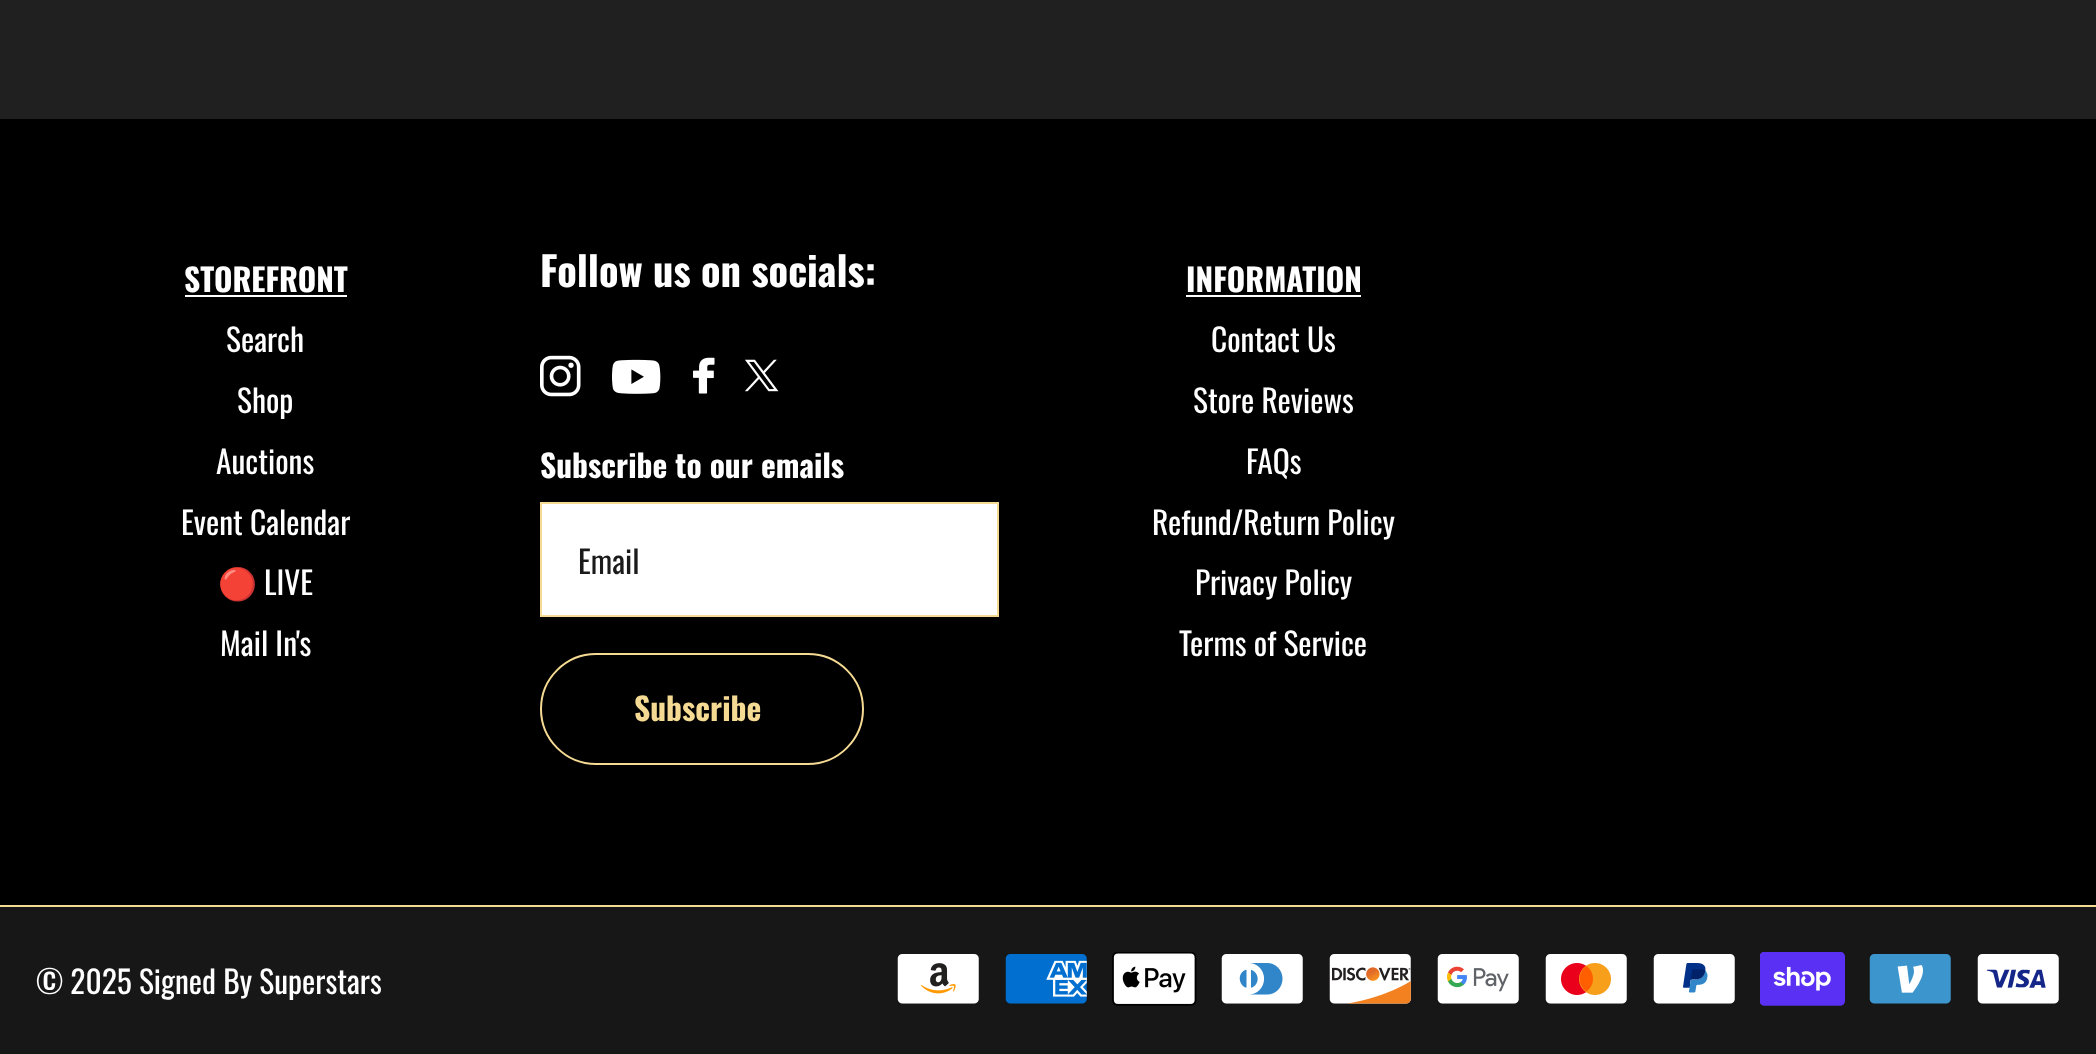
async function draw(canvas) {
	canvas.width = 2096;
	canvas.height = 1054;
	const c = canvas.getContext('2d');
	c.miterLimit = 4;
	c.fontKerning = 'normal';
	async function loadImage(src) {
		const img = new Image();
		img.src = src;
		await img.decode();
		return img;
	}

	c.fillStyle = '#202020';
	c.fillRect(0, 0, 2096, 1054);
	c.fillStyle = '#000';
	c.fillRect(0, 119, 2096, 786);
	c.font = 'bold 31.5px Oswald';
	c.fillStyle = '#fff';
	c.fillText('STOREFRONT', 184, 292);
	c.fillRect(185, 295, 162, 2);
	c.font = '31.5px Oswald';
	for (const [text, x, y] of [
		['Search', 226, 352],
		['Shop', 237, 413],
		['Auctions', 216, 474],
		['Event Calendar', 181, 535],
	]) {
		c.fillText(text, x, y);
	}
	c.font = '31.5px Noto Color Emoji';
	c.fillText('🔴', 218, 595);
	c.font = '31.5px Oswald';
	c.fillText('LIVE', 264, 595);
	c.fillText('Mail In\'s', 220, 656);
	c.font = 'bold 40.5px Oswald';
	c.fillText('Follow us on socials:', 540, 287);
	c.drawImage(await loadImage('img1.png'), 540, 355, 41, 42);
	c.drawImage(await loadImage('img2.png'), 612, 359, 49, 35);
	c.drawImage(await loadImage('img3.png'), 693, 357, 22, 37);
	c.drawImage(await loadImage('img4.png'), 744, 359, 35, 33);
	c.font = 'bold 31.5px Oswald';
	c.fillText('Subscribe to our emails', 540, 478);
	c.beginPath();
	c.rect(541, 503, 457, 113);
	c.fill();
	c.strokeStyle = '#f4da93';
	c.lineWidth = 2;
	c.stroke();
	c.font = '31.5px Oswald';
	c.fillStyle = '#1a1a1a';
	c.fillText('Email', 578, 574);
	c.beginPath();
	c.roundRect(541, 654, 322, 110, 55);
	c.stroke();
	c.font = 'bold 31.5px Oswald';
	c.fillStyle = '#f4da93';
	c.fillText('Subscribe', 634, 721);
	c.fillStyle = '#fff';
	c.fillText('INFORMATION', 1186, 292);
	c.fillRect(1186, 295, 175, 2);
	c.font = '31.5px Oswald';
	for (const [text, x, y] of [
		['Contact Us', 1211, 352],
		['Store Reviews', 1193, 413],
		['FAQs', 1246, 474],
		['Refund/Return Policy', 1152, 535],
		['Privacy Policy', 1195, 595],
		['Terms of Service', 1179, 656],
	]) {
		c.fillText(text, x, y);
	}
	c.fillStyle = '#171717';
	c.fillRect(0, 907, 2096, 147);
	c.fillStyle = '#f4da93';
	c.fillRect(0, 905, 2096, 2);
	c.fillStyle = '#fff';
	c.fillText('© 2025 Signed By Superstars', 36, 994);
	c.drawImage(await loadImage('img5.png'), 897, 954, 82, 50);
	c.drawImage(await loadImage('img6.png'), 1005, 954, 82, 50);
	c.drawImage(await loadImage('img7.png'), 1112, 952, 85, 54);
	c.drawImage(await loadImage('img8.png'), 1221, 954, 82, 50);
	c.drawImage(await loadImage('img9.png'), 1329, 954, 82, 50);
	c.drawImage(await loadImage('img10.png'), 1437, 954, 82, 50);
	c.drawImage(await loadImage('img11.png'), 1545, 954, 82, 50);
	c.drawImage(await loadImage('img12.png'), 1653, 954, 82, 50);
	c.drawImage(await loadImage('img13.png'), 1760, 952, 85, 54);
	c.drawImage(await loadImage('img14.png'), 1869, 954, 82, 50);
	c.drawImage(await loadImage('img15.png'), 1977, 954, 82, 50);
}

draw(document.querySelector('canvas'));
